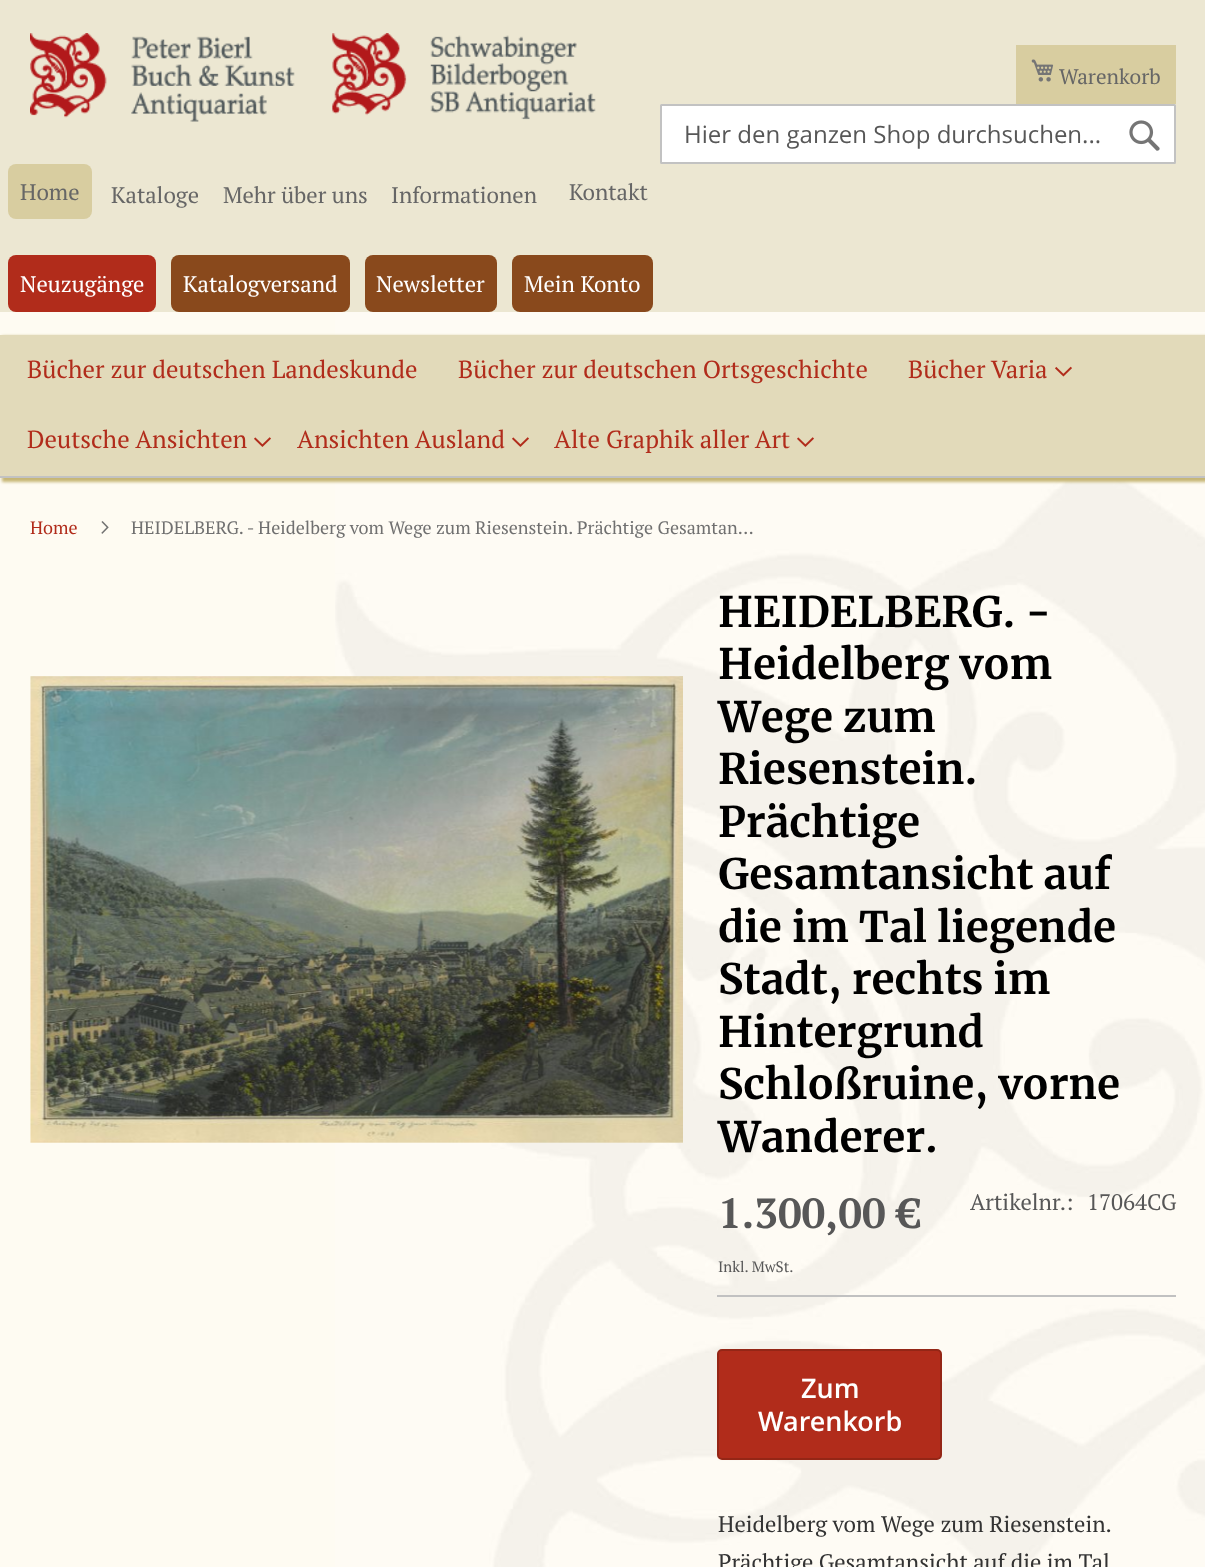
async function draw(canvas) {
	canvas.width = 1205;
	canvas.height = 1567;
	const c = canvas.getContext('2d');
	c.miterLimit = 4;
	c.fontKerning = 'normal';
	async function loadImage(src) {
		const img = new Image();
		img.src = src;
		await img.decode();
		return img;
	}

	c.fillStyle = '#fefbf2';
	c.fillRect(0, 0, 1205, 1567);
	c.drawImage(await loadImage('img1.png'), 335, 312, 870, 1255);
	c.fillStyle = '#ece7d2';
	c.fillRect(0, 0, 1205, 312);
	c.drawImage(await loadImage('img2.png'), 30, 33, 566, 89);
	c.fillStyle = '#d8cda0';
	c.fillRect(1016, 45, 160, 59);
	c.drawImage(await loadImage('img3.png'), 1031, 59, 23, 23);
	c.font = '21px PT Serif';
	c.fillStyle = '#666';
	c.fillText('Warenkorb', 1059, 84);
	c.fillStyle = '#fff';
	c.beginPath();
	c.roundRect(661, 105, 514, 58, 0.5);
	c.fill();
	c.strokeStyle = '#c2c2c2';
	c.lineWidth = 2;
	c.stroke();
	c.font = '24px Open Sans';
	c.fillStyle = '#575757';
	c.fillText('Hier den ganzen Shop durchsuchen...', 684, 143);
	c.drawImage(await loadImage('img4.png'), 1129, 120, 31, 31);
	c.fillStyle = '#d8cda0';
	c.beginPath();
	c.roundRect(8, 164, 84, 55, 8);
	c.fill();
	c.font = '22.5px PT Serif';
	c.fillStyle = '#666';
	for (const [text, x, y] of [
		['Home', 20, 200],
		['Kataloge', 111, 203],
		['Mehr über uns', 223, 203],
		['Informationen', 391, 203],
		['Kontakt', 569, 200],
	]) {
		c.fillText(text, x, y);
	}
	c.fillStyle = '#b12c1b';
	c.beginPath();
	c.roundRect(8, 255, 148, 57, 8);
	c.fill();
	c.fillStyle = '#fff';
	c.fillText('Neuzugänge', 20, 292);
	c.fillStyle = '#89491c';
	c.beginPath();
	c.roundRect(171, 255, 179, 57, 8);
	c.fill();
	c.fillStyle = '#fff';
	c.fillText('Katalogversand', 183, 292);
	c.fillStyle = '#89491c';
	c.beginPath();
	c.roundRect(365, 255, 132, 57, 8);
	c.fill();
	c.fillStyle = '#fff';
	c.fillText('Newsletter', 376, 292);
	c.fillStyle = '#89491c';
	c.beginPath();
	c.roundRect(512, 255, 141, 57, 8);
	c.fill();
	c.fillStyle = '#fff';
	c.fillText('Mein Konto', 524, 292);
	c.fillStyle = '#c6b675';
	c.filter = 'blur(1.5px)';
	c.beginPath();
	c.rect(2, 336, 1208, 146);
	c.fill();
	c.filter = 'none';
	c.fillStyle = '#e2daba';
	c.fillRect(0, 335, 1205, 141);
	c.fillStyle = '#c2c2c2';
	c.fillRect(0, 476, 1205, 2);
	c.font = '24.75px PT Serif';
	c.fillStyle = '#b12c1b';
	for (const [text, x, y] of [
		['Bücher zur deutschen Landeskunde', 27, 378],
		['Bücher zur deutschen Ortsgeschichte', 458, 378],
		['Bücher Varia', 908, 378],
	]) {
		c.fillText(text, x, y);
	}
	c.drawImage(await loadImage('img5.png'), 1055, 366, 17, 11);
	c.fillText('Deutsche Ansichten', 27, 448);
	c.drawImage(await loadImage('img6.png'), 254, 437, 17, 10);
	c.fillText('Ansichten Ausland', 297, 448);
	c.drawImage(await loadImage('img6.png'), 512, 437, 17, 10);
	c.fillText('Alte Graphik aller Art', 554, 448);
	c.drawImage(await loadImage('img6.png'), 797, 437, 17, 10);
	c.font = '18px PT Serif';
	c.fillText('Home', 30, 534);
	c.drawImage(await loadImage('img7.png'), 101, 521, 8, 13);
	c.fillStyle = '#707070';
	c.fillText('HEIDELBERG. - Heidelberg vom Wege zum Riesenstein. Prächtige Gesamtan…', 131, 534);
	c.drawImage(await loadImage('img8.png'), 30, 676, 653, 467);
	c.font = 'bold 42px Merriweather';
	c.fillStyle = '#000';
	for (const [text, x, y] of [
		['HEIDELBERG. -', 718, 627],
		['Heidelberg vom', 718, 679],
		['Wege zum', 718, 732],
		['Riesenstein.', 718, 784],
		['Prächtige', 718, 837],
		['Gesamtansicht auf', 718, 889],
		['die im Tal liegende', 718, 942],
		['Stadt, rechts im', 718, 994],
		['Hintergrund', 718, 1047],
		['Schloßruine, vorne', 718, 1099],
		['Wanderer.', 718, 1152],
	]) {
		c.fillText(text, x, y);
	}
	c.fillStyle = '#c1c1c1';
	c.fillRect(717, 1295, 459, 2);
	c.font = 'bold 42px PT Serif';
	c.fillStyle = '#575757';
	c.fillText('1.300,00 €', 718, 1228);
	c.font = '15px PT Serif';
	c.fillText('Inkl. MwSt.', 718, 1272);
	c.font = '22.5px PT Serif';
	c.fillText('Artikelnr.:', 970, 1210);
	c.fillText('17064CG', 1087, 1210);
	c.fillStyle = '#b12c1b';
	c.beginPath();
	c.roundRect(718, 1350, 223, 109, 4);
	c.fill();
	c.strokeStyle = '#942616';
	c.stroke();
	c.font = '600 27px Open Sans';
	c.fillStyle = '#fff';
	c.fillText('Zum', 801, 1398);
	c.fillText('Warenkorb', 758, 1431);
	c.font = '22.5px PT Serif';
	c.fillStyle = '#333';
	c.fillText('Heidelberg vom Wege zum Riesenstein.', 718, 1532);
	c.fillText('Prächtige Gesamtansicht auf die im Tal', 718, 1570);
}

draw(document.querySelector('canvas'));
